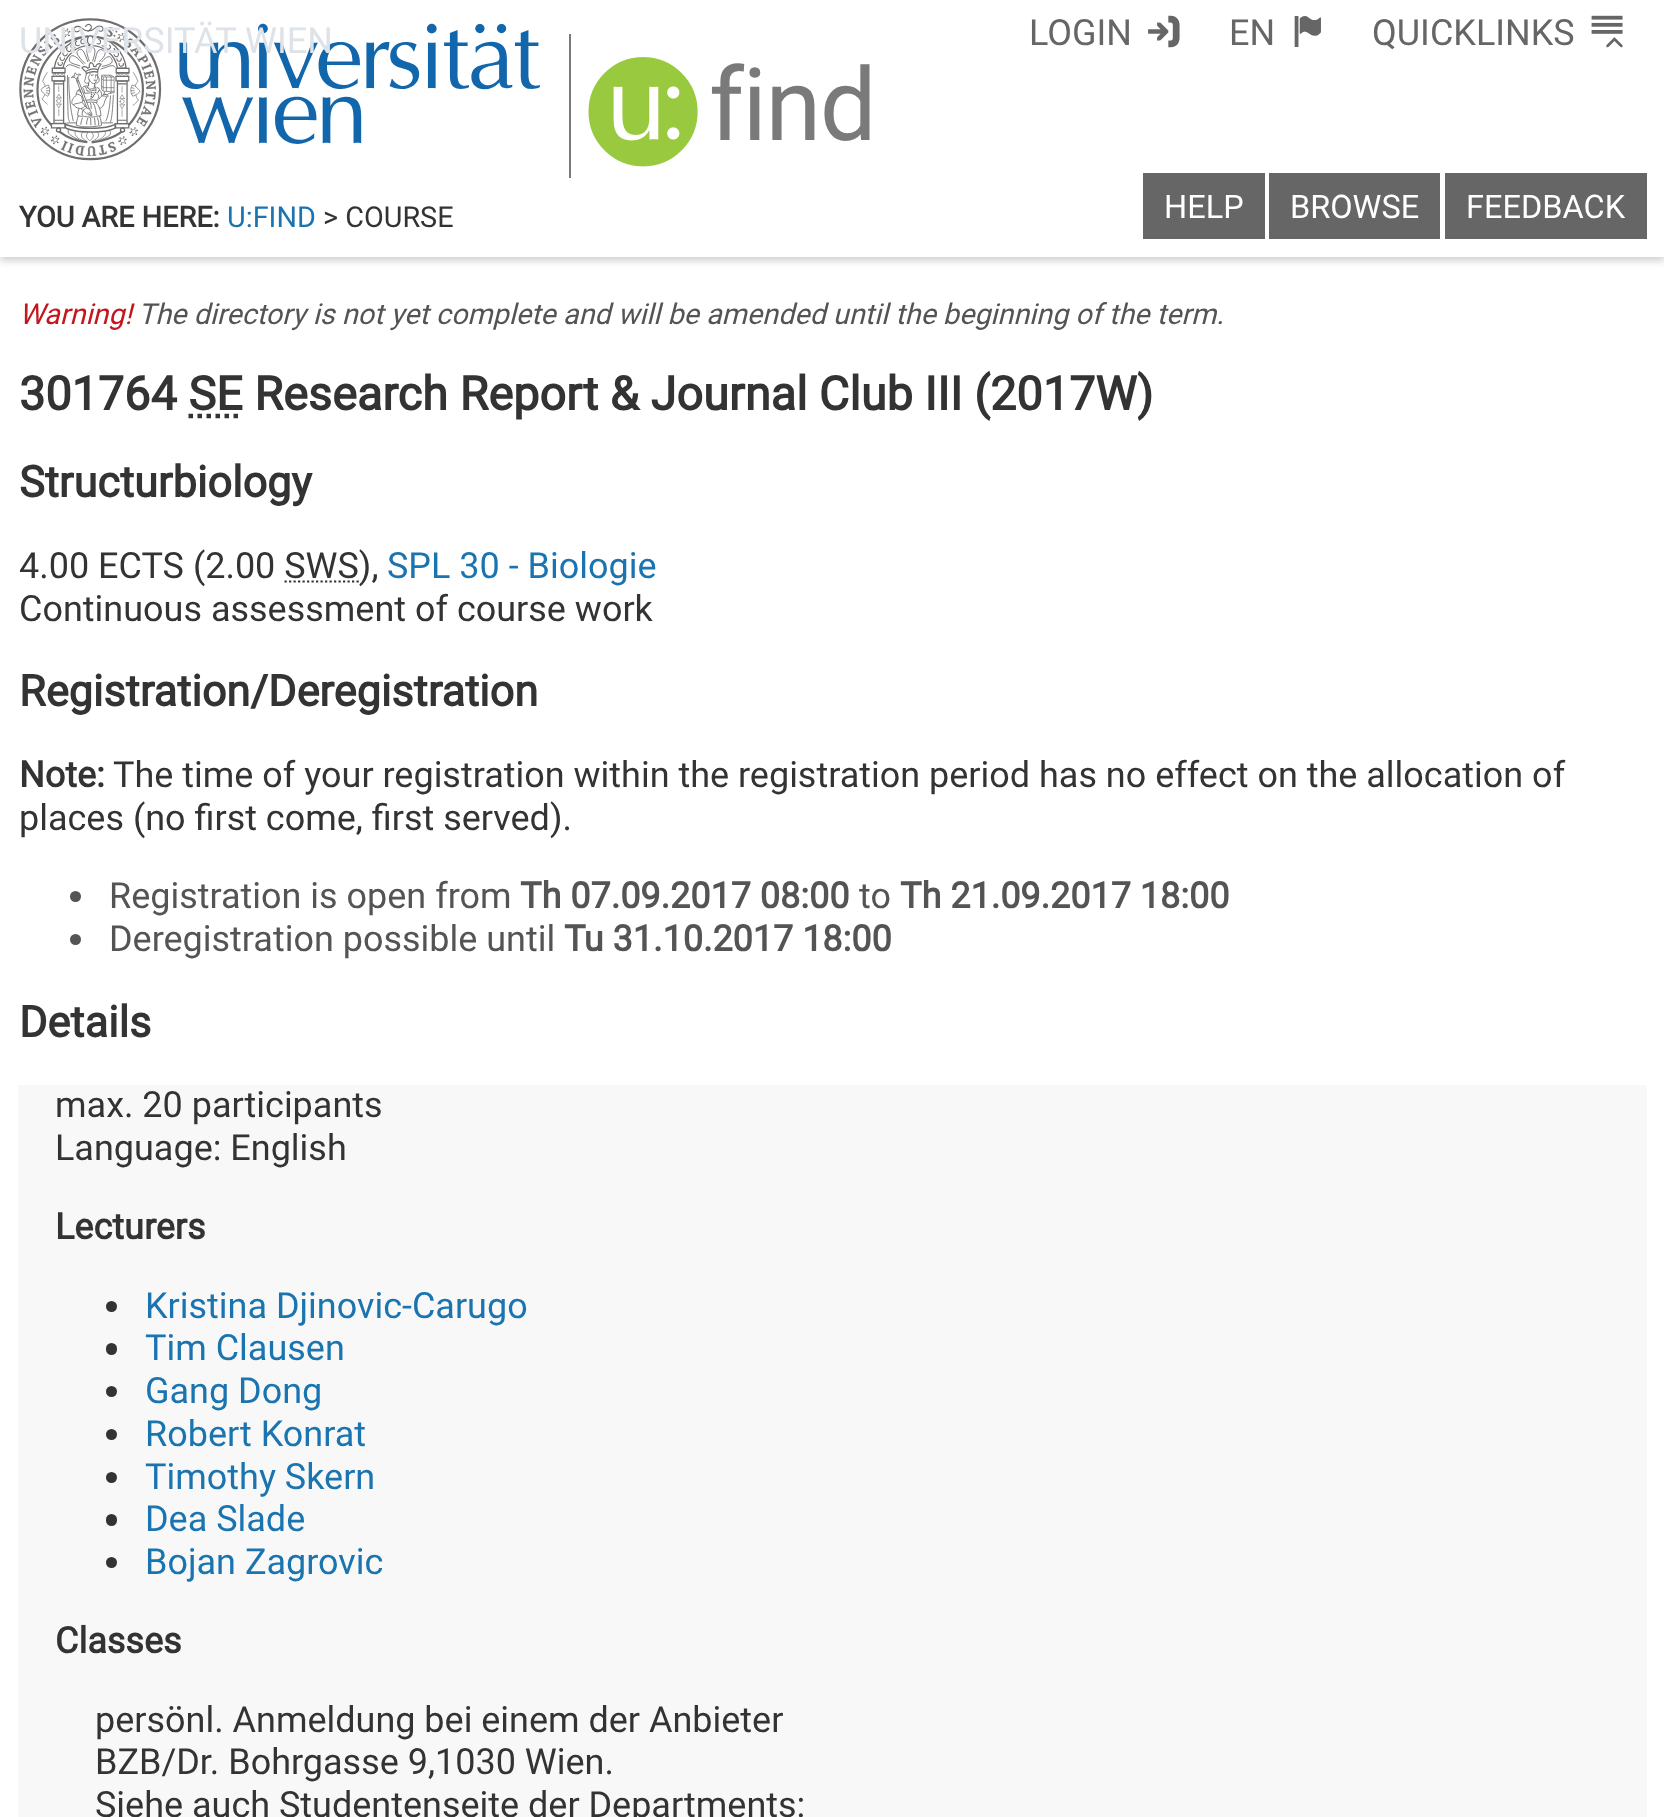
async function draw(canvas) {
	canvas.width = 1664;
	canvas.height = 1817;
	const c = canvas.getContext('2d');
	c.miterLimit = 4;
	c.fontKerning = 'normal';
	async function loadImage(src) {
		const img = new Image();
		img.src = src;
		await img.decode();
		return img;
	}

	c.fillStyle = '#fff';
	c.fillRect(0, 0, 1664, 1817);
	c.fillStyle = '#0000002e';
	c.filter = 'blur(3.5px)';
	c.beginPath();
	c.rect(0, 5, 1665, 256);
	c.fill();
	c.filter = 'none';
	c.fillStyle = '#fff';
	c.fillRect(0, 0, 1664, 257);
	c.drawImage(await loadImage('img1.png'), 19, 18, 521, 143);
	c.font = '36px Roboto';
	c.fillStyle = '#dde3e8';
	c.fillText('UNIVERSITÄT WIEN', 19, 53);
	c.fillStyle = '#7a7a7a';
	c.fillRect(569, 34, 2, 144);
	c.drawImage(await loadImage('img2.png'), 588, 57, 110, 110);
	c.letterSpacing = '-1.5px';
	c.font = '101px Roboto';
	c.fillText('find', 709, 140);
	c.letterSpacing = '0px';
	c.font = '36px Roboto';
	c.fillStyle = '#666';
	c.fillText('LOGIN', 1029, 45);
	c.drawImage(await loadImage('img3.png'), 1148, 15, 32, 33);
	c.fillText('EN', 1229, 45);
	c.drawImage(await loadImage('img4.png'), 1294, 16, 27, 31);
	c.fillText('QUICKLINKS', 1372, 45);
	c.drawImage(await loadImage('img5.png'), 1591, 15, 32, 33);
	c.fillRect(1143, 173, 122, 66);
	c.font = '32.5px Roboto';
	c.fillStyle = '#fff';
	c.fillText('HELP', 1164, 218);
	c.fillStyle = '#666';
	c.fillRect(1269, 173, 171, 66);
	c.fillStyle = '#fff';
	c.fillText('BROWSE', 1290, 218);
	c.fillStyle = '#666';
	c.fillRect(1445, 173, 202, 66);
	c.fillStyle = '#fff';
	c.fillText('FEEDBACK', 1466, 218);
	c.font = 'bold 28.8px Roboto';
	c.fillStyle = '#333';
	c.fillText('YOU ARE HERE:', 19, 227);
	c.font = '28.8px Roboto';
	c.fillStyle = '#1a74b0';
	c.fillText('U:FIND', 227, 227);
	c.fillStyle = '#333';
	c.fillText('> COURSE', 323, 227);
	c.font = 'italic 28.8px Roboto';
	c.fillStyle = '#c4161c';
	c.fillText('Warning!', 19, 324);
	c.fillStyle = '#545454';
	c.fillText('The directory is not yet complete and will be amended until the beginning of the term.', 138, 324);
	c.font = 'bold 46.8px Roboto';
	c.fillStyle = '#333';
	c.fillText('301764 SE Research Report & Journal Club III (2017W', 19, 410);
	c.beginPath();
	c.moveTo(188.5, 416);
	c.lineTo(242.5, 416);
	c.strokeStyle = '#333';
	c.lineWidth = 4.5;
	c.setLineDash([4.5, 4.5]);
	c.stroke();
	c.fillText(')', 1137, 410);
	c.font = 'bold 43.25px Roboto';
	c.fillText('Structurbiology', 19, 497);
	c.font = '36px Roboto';
	c.fillText('4.00 ECTS (2.00 SWS),', 19, 578);
	c.fillStyle = '#1a74b0';
	c.fillText('SPL 30 - Biologie', 387, 578);
	c.beginPath();
	c.moveTo(284.5, 581.5);
	c.lineTo(359, 581.5);
	c.lineWidth = 2.2;
	c.setLineDash([2.25, 2.25]);
	c.stroke();
	c.fillStyle = '#333';
	c.fillText('Continuous assessment of course work', 19, 621);
	c.font = 'bold 43.25px Roboto';
	c.fillText('Registration/Deregistration', 19, 706);
	c.font = 'bold 36px Roboto';
	c.fillText('Note:', 19, 787);
	c.font = '36px Roboto';
	c.fillText('The time of your registration within the registration period has no effect on the allocation of', 113, 787);
	c.fillText('places (no first come, first served).', 19, 830);
	c.fillStyle = '#545454';
	c.beginPath();
	c.arc(75.5, 896.5, 5.5, 0, 2 * Math.PI);
	c.fill();
	c.fillText('Registration is open from', 109, 908);
	c.font = 'bold 36px Roboto';
	c.fillText('Th 07.09.2017 08:00', 520, 908);
	c.font = '36px Roboto';
	c.fillText('to', 859, 908);
	c.font = 'bold 36px Roboto';
	c.fillText('Th 21.09.2017 18:00', 900, 908);
	c.beginPath();
	c.arc(75.5, 939.5, 5.5, 0, 2 * Math.PI);
	c.fill();
	c.font = '36px Roboto';
	c.fillText('Deregistration possible until', 109, 951);
	c.font = 'bold 36px Roboto';
	c.fillText('Tu 31.10.2017 18:00', 564, 951);
	c.font = 'bold 43.25px Roboto';
	c.fillStyle = '#333';
	c.fillText('Details', 19, 1037);
	c.fillStyle = '#f8f8f8';
	c.fillRect(18, 1085, 1629, 732);
	c.font = '36px Roboto';
	c.fillStyle = '#333';
	c.fillText('max. 20 participants', 55, 1117);
	c.fillText('Language: English', 55, 1160);
	c.font = 'bold 36px Roboto';
	c.fillText('Lecturers', 55, 1239);
	c.beginPath();
	c.arc(111.5, 1306.5, 5.5, 0, 2 * Math.PI);
	c.fill();
	c.font = '36px Roboto';
	c.fillStyle = '#1a74b0';
	c.fillText('Kristina Djinovic-Carugo', 145, 1318);
	c.fillStyle = '#333';
	c.beginPath();
	c.roundRect(106, 1343, 11, 12, 5.5);
	c.fill();
	c.fillStyle = '#1a74b0';
	c.fillText('Tim Clausen', 145, 1360);
	c.fillStyle = '#333';
	c.beginPath();
	c.arc(111.5, 1391.5, 5.5, 0, 2 * Math.PI);
	c.fill();
	c.fillStyle = '#1a74b0';
	c.fillText('Gang Dong', 145, 1403);
	c.fillStyle = '#333';
	c.beginPath();
	c.arc(111.5, 1434.5, 5.5, 0, 2 * Math.PI);
	c.fill();
	c.fillStyle = '#1a74b0';
	c.fillText('Robert Konrat', 145, 1446);
	c.fillStyle = '#333';
	c.beginPath();
	c.arc(111.5, 1477.5, 5.5, 0, 2 * Math.PI);
	c.fill();
	c.fillStyle = '#1a74b0';
	c.fillText('Timothy Skern', 145, 1489);
	c.fillStyle = '#333';
	c.beginPath();
	c.roundRect(106, 1514, 11, 12, 5.5);
	c.fill();
	c.fillStyle = '#1a74b0';
	c.fillText('Dea Slade', 145, 1531);
	c.fillStyle = '#333';
	c.beginPath();
	c.arc(111.5, 1562.5, 5.5, 0, 2 * Math.PI);
	c.fill();
	c.fillStyle = '#1a74b0';
	c.fillText('Bojan Zagrovic', 145, 1574);
	c.font = 'bold 36px Roboto';
	c.fillStyle = '#333';
	c.fillText('Classes', 55, 1653);
	c.font = '36px Roboto';
	for (const [text, x, y] of [
		['persönl. Anmeldung bei einem der Anbieter', 95, 1732],
		['BZB/Dr. Bohrgasse 9,1030 Wien.', 95, 1774],
		['Siehe auch Studentenseite der Departments:', 95, 1817],
	]) {
		c.fillText(text, x, y);
	}
}

draw(document.querySelector('canvas'));
